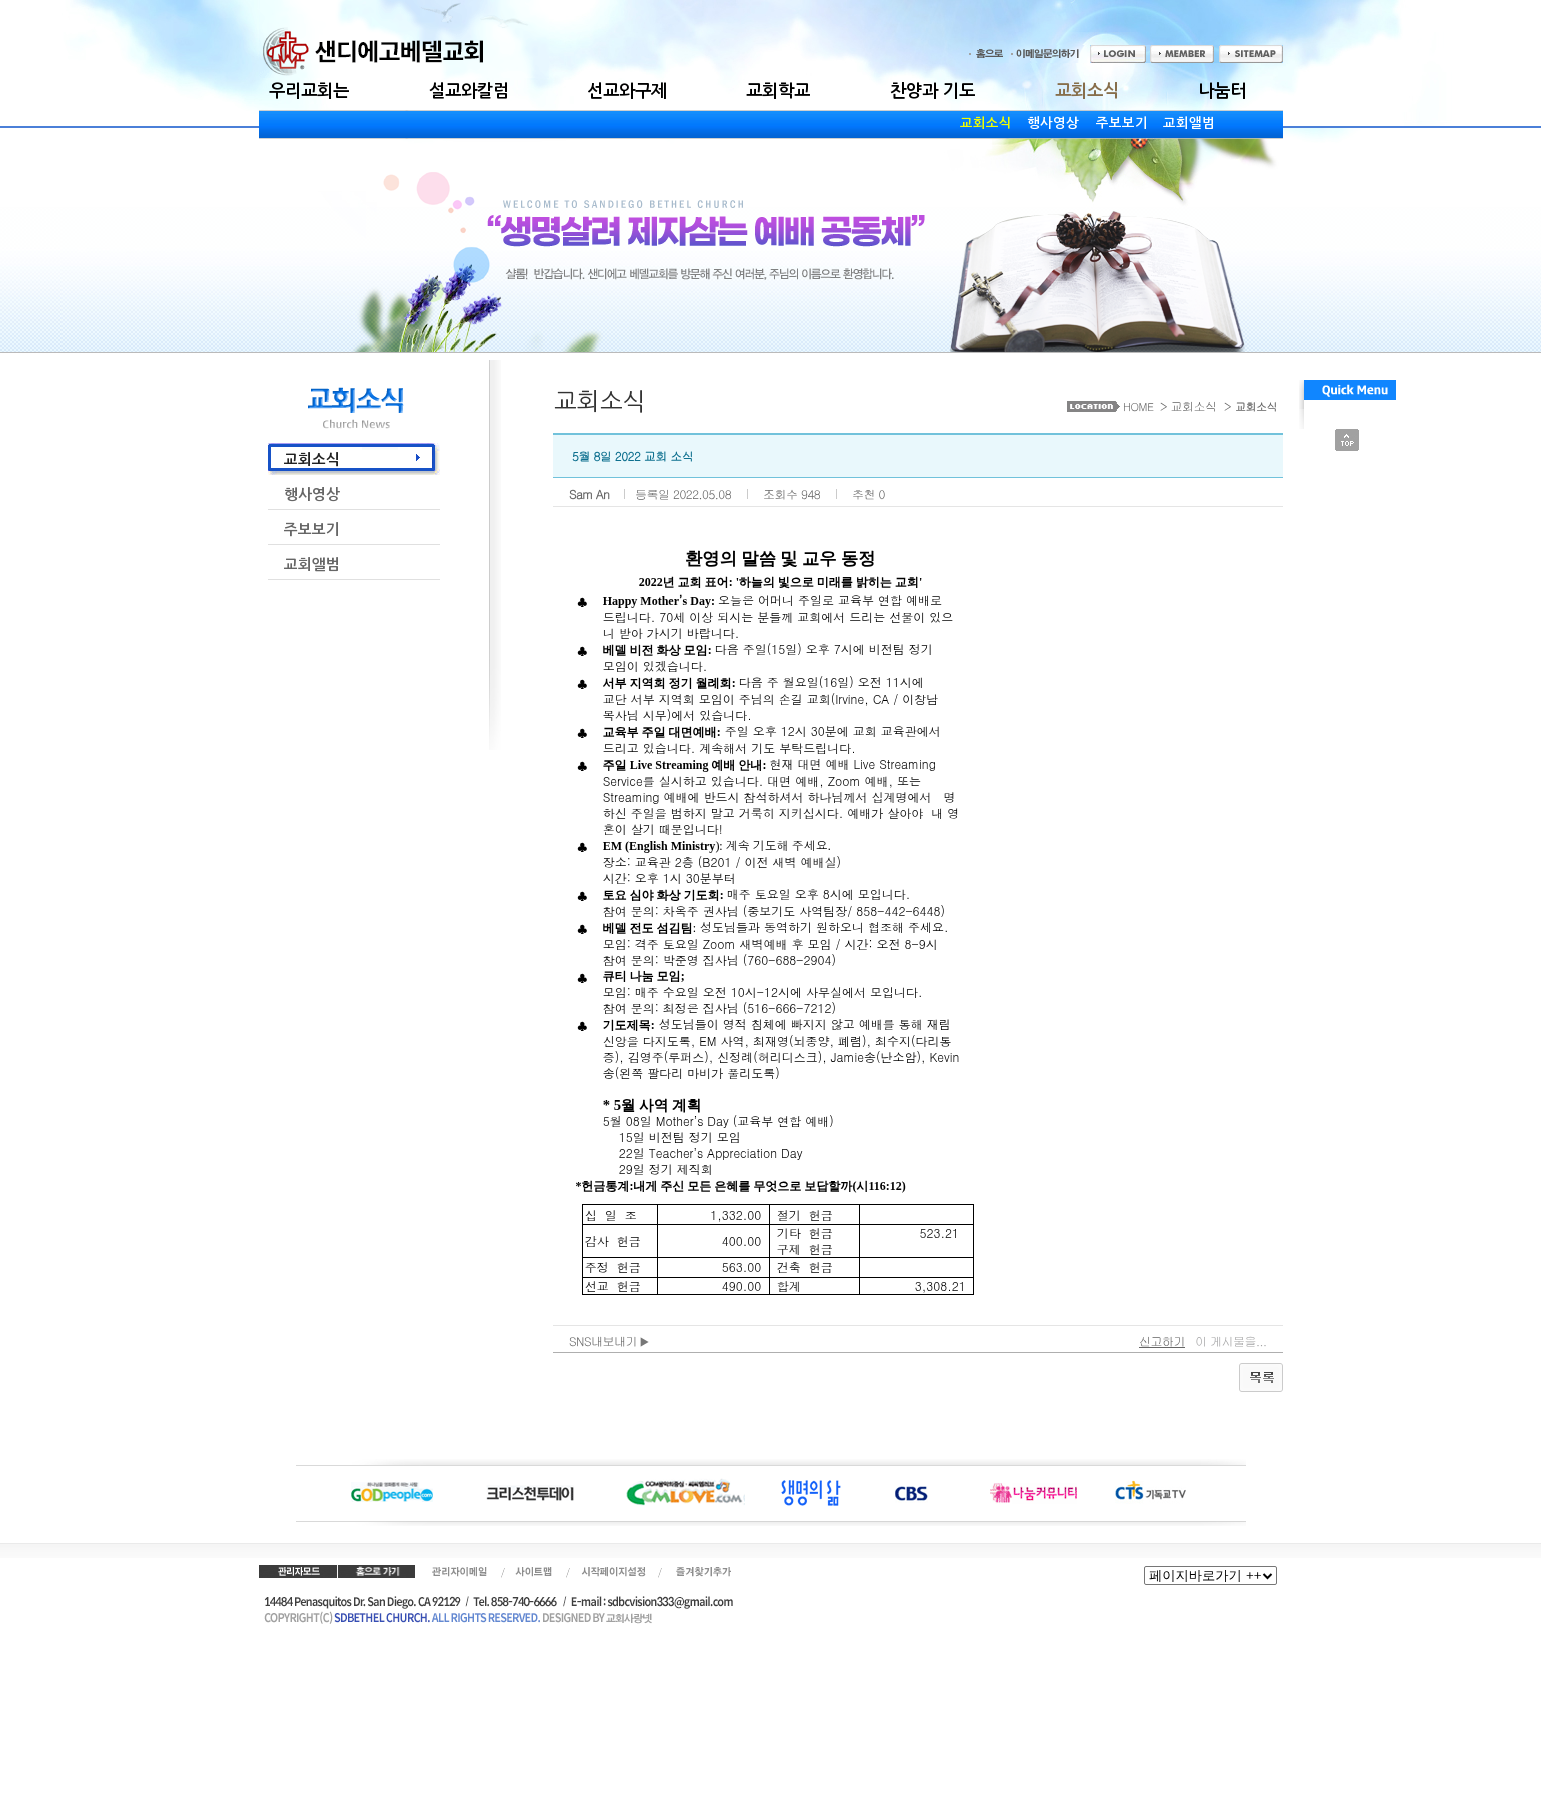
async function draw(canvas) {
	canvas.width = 1541;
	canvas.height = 1813;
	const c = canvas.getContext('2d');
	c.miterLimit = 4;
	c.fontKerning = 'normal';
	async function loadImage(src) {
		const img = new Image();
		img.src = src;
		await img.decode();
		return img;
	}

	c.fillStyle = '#fff';
	c.fillRect(0, 0, 1541, 1813);
	c.drawImage(await loadImage('img1.png'), 0, 126, 1541, 227);
	c.drawImage(await loadImage('img2.png'), 62, 0, 1417, 352);
	c.drawImage(await loadImage('img3.png'), 259, 0, 290, 78);
	c.drawImage(await loadImage('img4.png'), 969, 49, 40, 14);
	c.drawImage(await loadImage('img5.png'), 1011, 45, 76, 18);
	c.drawImage(await loadImage('img6.png'), 1090, 45, 60, 18);
	c.drawImage(await loadImage('img7.png'), 1150, 45, 69, 18);
	c.drawImage(await loadImage('img8.png'), 1219, 45, 64, 18);
	c.drawImage(await loadImage('img9.png'), 259, 110, 1024, 29);
	c.drawImage(await loadImage('img10.png'), 269, 82, 80, 17);
	c.drawImage(await loadImage('img11.png'), 429, 82, 78, 17);
	c.drawImage(await loadImage('img12.png'), 588, 82, 78, 17);
	c.drawImage(await loadImage('img13.png'), 746, 82, 64, 17);
	c.drawImage(await loadImage('img14.png'), 890, 82, 85, 17);
	c.drawImage(await loadImage('img15.png'), 1055, 82, 62, 17);
	c.drawImage(await loadImage('img16.png'), 1200, 82, 45, 17);
	c.drawImage(await loadImage('img17.png'), 960, 116, 50, 13);
	c.drawImage(await loadImage('img18.png'), 1027, 116, 52, 14);
	c.drawImage(await loadImage('img19.png'), 1096, 116, 50, 13);
	c.drawImage(await loadImage('img20.png'), 1163, 116, 50, 14);
	c.drawImage(await loadImage('img21.png'), 383, 172, 862, 180);
	c.drawImage(await loadImage('img22.png'), 489, 360, 12, 390);
	c.drawImage(await loadImage('img23.png'), 308, 387, 96, 42);
	c.drawImage(await loadImage('img24.png'), 268, 443, 172, 32);
	c.drawImage(await loadImage('img25.png'), 284, 452, 54, 15);
	c.fillStyle = '#e0e0e0';
	c.fillRect(268, 509, 172, 1);
	c.drawImage(await loadImage('img26.png'), 285, 487, 55, 15);
	c.fillRect(268, 544, 172, 1);
	c.drawImage(await loadImage('img27.png'), 284, 522, 54, 15);
	c.fillRect(268, 579, 172, 1);
	c.drawImage(await loadImage('img28.png'), 284, 557, 54, 15);
	c.drawImage(await loadImage('img29.png'), 554, 390, 88, 23);
	c.drawImage(await loadImage('img30.png'), 1067, 401, 53, 11);
	c.letterSpacing = '-0.5px';
	c.font = '11px Gulim';
	c.fillStyle = '#666';
	c.fillText('HOME', 1123, 411);
	c.font = '12px Gulim';
	c.fillText('> 교회소식', 1160, 411);
	c.fillText('>', 1224, 411);
	c.font = 'bold 11px Gulim';
	c.fillText('교회소식', 1235, 411);
	for (const [x, y, w, h, color] of [
		[553, 435, 730, 42, '#e9f8fc'],
		[553, 433, 730, 2, '#71c2db'],
		[553, 477, 730, 1, '#71c2db'],
	]) {
		c.fillStyle = color;
		c.fillRect(x, y, w, h);
	}
	c.font = 'bold 12px Gulim';
	c.fillStyle = '#0e708f';
	c.fillText('5월 8일 2022 교회 소식', 572, 461);
	c.fillStyle = '#e5e5e5';
	c.fillRect(553, 506, 730, 1);
	c.fillStyle = '#666';
	c.fillText('Sam An', 569, 499);
	c.fillStyle = '#cbcbcb';
	c.fillRect(624, 489, 1, 10);
	c.font = '12px Gulim';
	c.fillStyle = '#666';
	c.fillText('등록일 2022.05.08', 635, 499);
	c.fillStyle = '#cbcbcb';
	c.fillRect(747, 489, 1, 10);
	c.fillStyle = '#666';
	c.fillText('조회수 948', 763, 499);
	c.fillStyle = '#cbcbcb';
	c.fillRect(836, 489, 1, 10);
	c.fillStyle = '#666';
	c.fillText('추천 0', 852, 499);
	c.drawImage(await loadImage('img31.png'), 576, 550, 398, 745);
	c.fillStyle = '#e5e5e5';
	c.fillRect(553, 1325, 730, 1);
	c.fillStyle = '#afafaf';
	c.fillRect(553, 1352, 730, 1);
	c.fillStyle = '#666';
	c.fillText('SNS내보내기', 569, 1346);
	c.drawImage(await loadImage('img32.png'), 640, 1337, 9, 10);
	c.fillText('신고하기', 1139, 1346);
	c.fillRect(1139, 1347, 46, 1);
	c.fillStyle = '#a5a5a6';
	c.fillText('이 게시물을...', 1195, 1346);
	c.drawImage(await loadImage('img33.png'), 1239, 1363, 44, 29);
	c.drawImage(await loadImage('img34.png'), 1299, 400, 5, 9);
	c.drawImage(await loadImage('img35.png'), 1299, 380, 97, 20);
	c.drawImage(await loadImage('img36.png'), 1299, 409, 5, 20);
	c.drawImage(await loadImage('img37.png'), 1299, 429, 60, 22);
	c.drawImage(await loadImage('img38.png'), 0, 1543, 1541, 15);
	c.drawImage(await loadImage('img39.png'), 296, 1459, 950, 67);
	c.drawImage(await loadImage('img40.png'), 351, 1482, 82, 20);
	c.drawImage(await loadImage('img41.png'), 486, 1485, 88, 16);
	c.drawImage(await loadImage('img42.png'), 626, 1478, 119, 28);
	c.drawImage(await loadImage('img43.png'), 781, 1480, 60, 26);
	c.drawImage(await loadImage('img44.png'), 895, 1486, 33, 17);
	c.drawImage(await loadImage('img45.png'), 990, 1483, 87, 21);
	c.drawImage(await loadImage('img46.png'), 1115, 1480, 71, 24);
	c.drawImage(await loadImage('img47.png'), 259, 1565, 78, 13);
	c.drawImage(await loadImage('img48.png'), 337, 1565, 78, 13);
	c.drawImage(await loadImage('img49.png'), 432, 1567, 73, 11);
	c.drawImage(await loadImage('img50.png'), 515, 1567, 55, 11);
	c.drawImage(await loadImage('img51.png'), 581, 1567, 81, 11);
	c.drawImage(await loadImage('img52.png'), 676, 1567, 55, 10);
	c.beginPath();
	c.roundRect(1144.5, 1566.5, 132, 18, 1.5);
	c.strokeStyle = '#767676';
	c.stroke();
	c.beginPath();
	c.moveTo(1263.5, 1574);
	c.lineTo(1267.5, 1578);
	c.lineTo(1271.5, 1574);
	c.strokeStyle = '#000';
	c.lineWidth = 2;
	c.stroke();
	c.letterSpacing = '0px';
	c.font = '500 13.25px WenQuanYi Zen Hei';
	c.fillStyle = '#000';
	c.fillText('페이지바로가기', 1149, 1580);
	c.font = '13.25px Liberation Sans';
	c.fillText('++', 1246, 1580);
	c.drawImage(await loadImage('img53.png'), 264, 1596, 469, 28);
}

draw(document.querySelector('canvas'));
